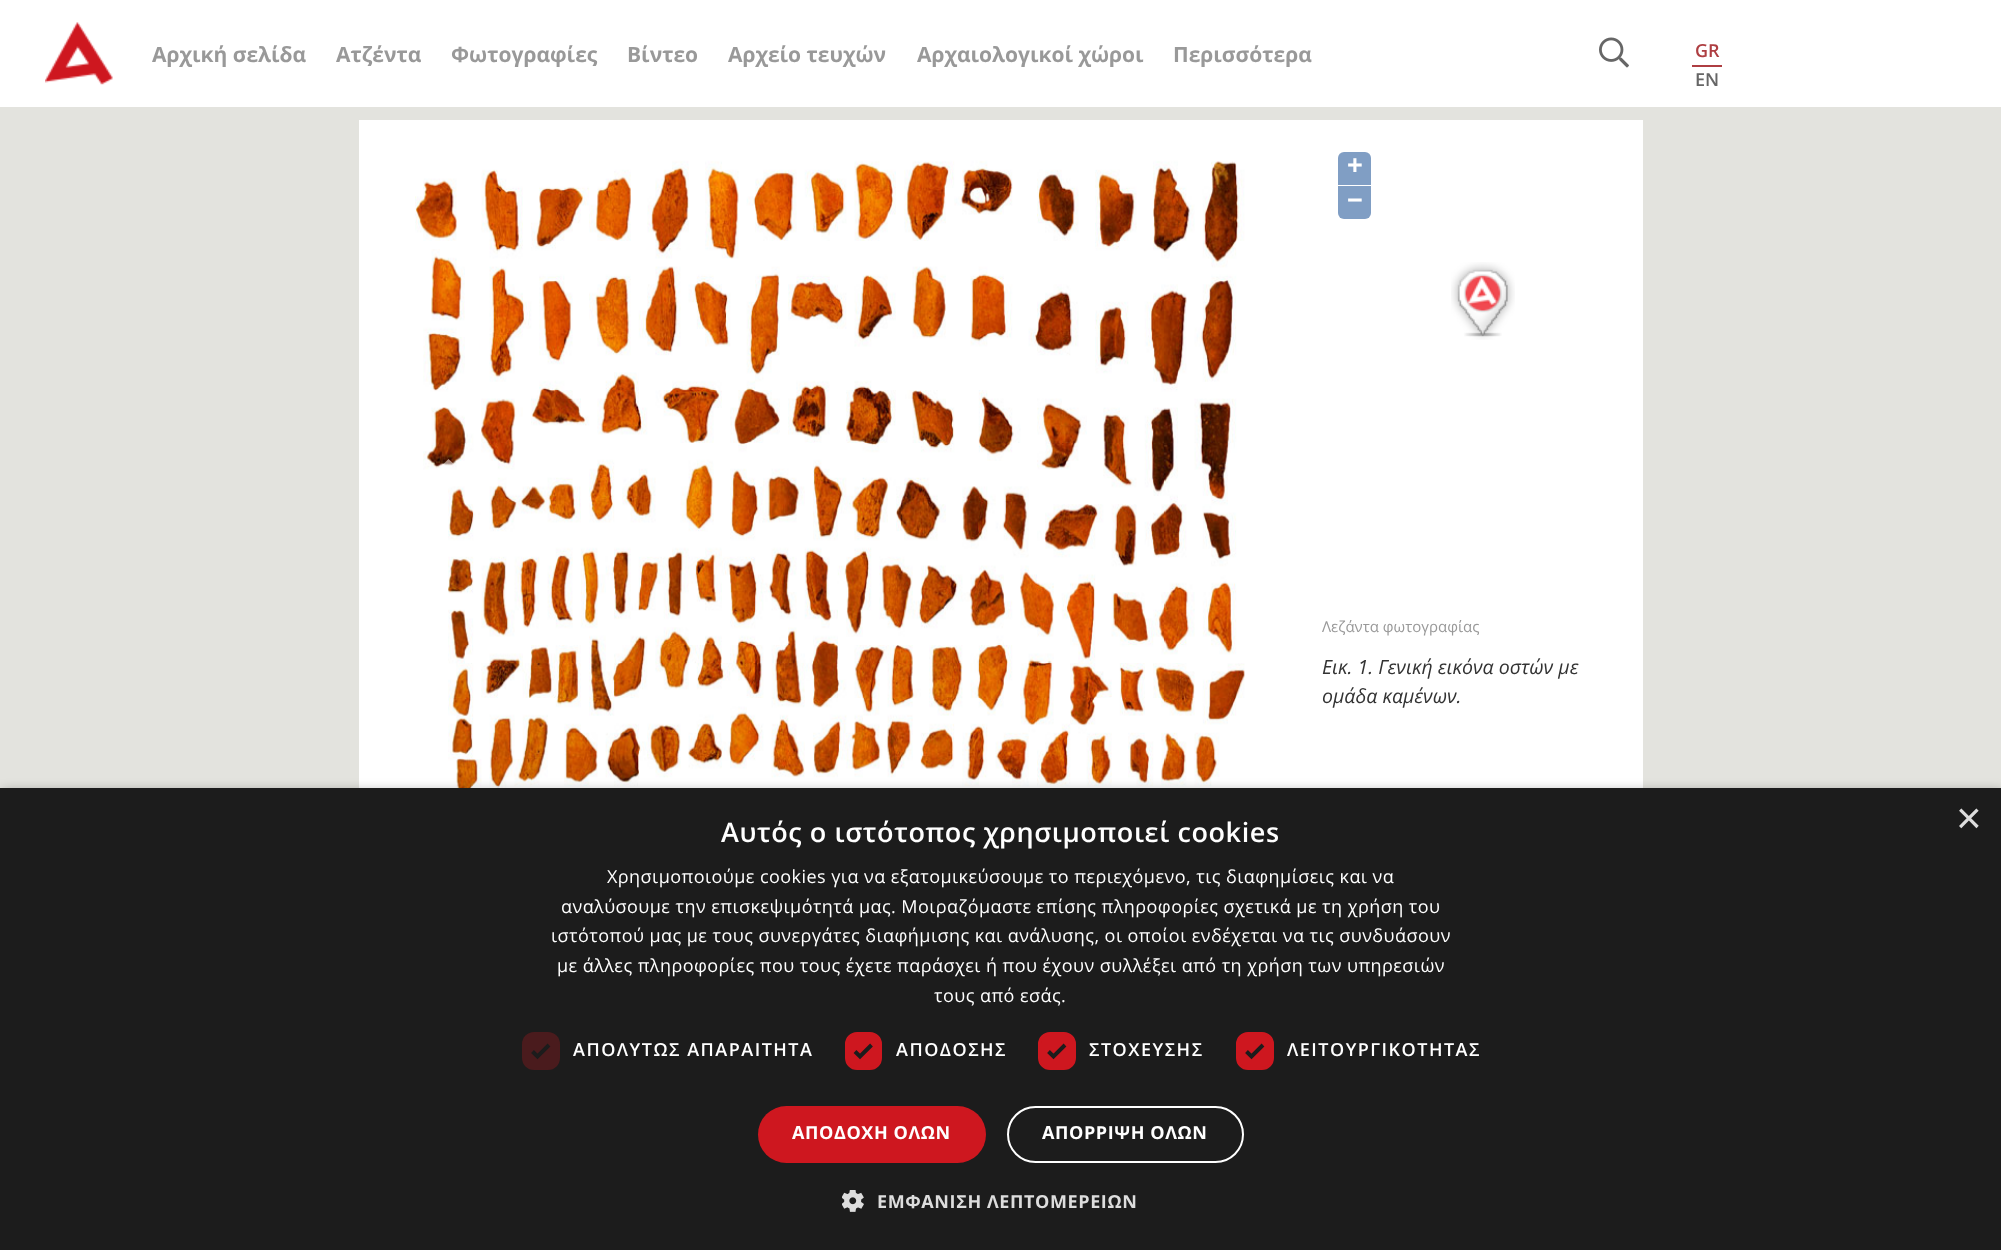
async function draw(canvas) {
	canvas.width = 2001;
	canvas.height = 1250;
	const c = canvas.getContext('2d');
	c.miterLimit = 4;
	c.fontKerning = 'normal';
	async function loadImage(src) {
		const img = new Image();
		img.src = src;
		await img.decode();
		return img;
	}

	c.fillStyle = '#e3e3de';
	c.fillRect(0, 0, 2001, 1250);
	c.fillStyle = '#fff';
	c.fillRect(0, 0, 2001, 107);
	c.drawImage(await loadImage('img1.png'), 45, 22, 68, 63);
	c.font = 'bold 21px Open Sans';
	c.fillStyle = '#999';
	for (const [text, x, y] of [
		['Αρχική σελίδα', 152, 62],
		['Ατζέντα', 336, 62],
		['Φωτογραφίες', 451, 62],
		['Βίντεο', 627, 62],
		['Αρχείο τευχών', 728, 62],
		['Αρχαιολογικοί χώροι', 917, 62],
		['Περισσότερα', 1173, 62],
	]) {
		c.fillText(text, x, y);
	}
	c.drawImage(await loadImage('img2.png'), 1599, 37, 30, 31);
	c.fillStyle = '#ae3e42';
	c.fillRect(1692, 65, 30, 2);
	c.font = '600 18px Open Sans';
	c.fillText('GR', 1695, 57);
	c.fillStyle = '#666';
	c.fillText('EN', 1695, 86);
	c.fillStyle = '#fff';
	c.fillRect(359, 120, 1284, 668);
	c.drawImage(await loadImage('img3.png'), 374, 135, 933, 653);
	c.fillStyle = '#ffffff80';
	c.beginPath();
	c.moveTo(448.5, 459);
	c.lineTo(433.5, 474);
	c.lineTo(448.5, 489);
	c.lineTo(454.5, 483.5);
	c.lineTo(445, 474);
	c.lineTo(454.5, 464.5);
	c.closePath();
	c.fill();
	c.beginPath();
	c.moveTo(1231.5, 459);
	c.lineTo(1225.5, 464.5);
	c.lineTo(1235, 474);
	c.lineTo(1225.5, 483.5);
	c.lineTo(1231.5, 489);
	c.lineTo(1246.5, 474);
	c.closePath();
	c.fill();
	c.fillStyle = '#809ec4';
	c.beginPath();
	c.roundRect(1338, 152, 33, 33, [6, 6, 0, 0]);
	c.fill();
	c.font = 'bold 27px Liberation Sans';
	c.fillStyle = '#fff';
	c.fillText('+', 1347, 174);
	c.fillStyle = '#809ec4';
	c.beginPath();
	c.roundRect(1338, 186, 33, 33, [0, 0, 6, 6]);
	c.fill();
	c.fillStyle = '#fff';
	c.fillText('−', 1347, 209);
	c.drawImage(await loadImage('img4.png'), 1451, 262, 64, 78);
	c.font = '15px Open Sans';
	c.fillStyle = '#999';
	c.fillText('Λεζάντα φωτογραφίας', 1322, 632);
	c.font = 'italic 19.5px Open Sans';
	c.fillStyle = '#333';
	c.fillText('Εικ. 1. Γενική εικόνα οστών με', 1322, 674);
	c.fillText('ομάδα καμένων.', 1322, 703);
	c.fillStyle = '#00000059';
	c.filter = 'blur(6px)';
	c.beginPath();
	c.rect(2, 791, 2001, 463);
	c.fill();
	c.filter = 'none';
	c.fillStyle = '#1c1c1c';
	c.fillRect(0, 788, 2001, 462);
	c.letterSpacing = '0.6px';
	c.font = '600 27px Open Sans';
	c.fillStyle = '#fff';
	c.fillText('Αυτός ο ιστότοπος χρησιμοποιεί cookies', 721, 842);
	c.letterSpacing = '0px';
	c.font = '44px Liberation Sans';
	c.fillStyle = '#ddd';
	c.fillText('×', 1956, 833);
	c.letterSpacing = '0.45px';
	c.font = '18px Open Sans';
	c.fillStyle = '#fff';
	for (const [text, x, y] of [
		['Χρησιμοποιούμε cookies για να εξατομικεύσουμε το περιεχόμενο, τις διαφημίσεις και να', 607, 883],
		['αναλύσουμε την επισκεψιμότητά μας. Μοιραζόμαστε επίσης πληροφορίες σχετικά με τη χρήση του', 561, 913],
		['ιστότοπού μας με τους συνεργάτες διαφήμισης και ανάλυσης, οι οποίοι ενδέχεται να τις συνδυάσουν', 551, 942],
		['με άλλες πληροφορίες που τους έχετε παράσχει ή που έχουν συλλέξει από τη χρήση των υπηρεσιών', 557, 972],
		['τους από εσάς.', 934, 1002],
	]) {
		c.fillText(text, x, y);
	}
	c.fillStyle = '#4a1b1d';
	c.beginPath();
	c.roundRect(522, 1032, 38, 38, 12);
	c.fill();
	c.beginPath();
	c.moveTo(532.5, 1051.5);
	c.lineTo(537.5, 1056.5);
	c.lineTo(549, 1045);
	c.strokeStyle = '#1c1c1c';
	c.lineWidth = 3.9;
	c.stroke();
	c.letterSpacing = '1.5px';
	c.font = '600 18px Open Sans';
	c.fillStyle = '#fff';
	c.fillText('ΑΠΟΛΥΤΩΣ ΑΠΑΡΑΙΤΗΤΑ', 573, 1056);
	c.fillStyle = '#ce171f';
	c.beginPath();
	c.roundRect(846.5, 1033.5, 34, 35, 10.5);
	c.fill();
	c.strokeStyle = '#ce171f';
	c.lineWidth = 3;
	c.stroke();
	c.beginPath();
	c.moveTo(855, 1051.5);
	c.lineTo(860, 1056.5);
	c.lineTo(871.5, 1045);
	c.strokeStyle = '#1c1c1c';
	c.lineWidth = 3.9;
	c.stroke();
	c.fillStyle = '#fff';
	c.fillText('ΑΠΟΔΟΣΗΣ', 896, 1056);
	c.fillStyle = '#ce171f';
	c.beginPath();
	c.roundRect(1039.5, 1033.5, 35, 35, 10.5);
	c.fill();
	c.strokeStyle = '#ce171f';
	c.lineWidth = 3;
	c.stroke();
	c.beginPath();
	c.moveTo(1048.5, 1051.5);
	c.lineTo(1053.5, 1056.5);
	c.lineTo(1065, 1045);
	c.strokeStyle = '#1c1c1c';
	c.lineWidth = 3.9;
	c.stroke();
	c.fillStyle = '#fff';
	c.fillText('ΣΤΟΧΕΥΣΗΣ', 1089, 1056);
	c.fillStyle = '#ce171f';
	c.beginPath();
	c.roundRect(1237.5, 1033.5, 35, 35, 10.5);
	c.fill();
	c.strokeStyle = '#ce171f';
	c.lineWidth = 3;
	c.stroke();
	c.beginPath();
	c.moveTo(1246.5, 1051.5);
	c.lineTo(1251.5, 1056.5);
	c.lineTo(1263, 1045);
	c.strokeStyle = '#1c1c1c';
	c.lineWidth = 3.9;
	c.stroke();
	c.fillStyle = '#fff';
	c.fillText('ΛΕΙΤΟΥΡΓΙΚΟΤΗΤΑΣ', 1287, 1056);
	c.fillStyle = '#ce171f';
	c.beginPath();
	c.roundRect(758, 1106, 228, 57, 28.5);
	c.fill();
	c.letterSpacing = '0.6px';
	c.font = 'bold 18px Open Sans';
	c.fillStyle = '#fff';
	c.fillText('ΑΠΟΔΟΧΗ ΟΛΩΝ', 792, 1139);
	c.beginPath();
	c.roundRect(1008, 1107, 235, 55, 27.5);
	c.strokeStyle = '#fff';
	c.lineWidth = 2;
	c.stroke();
	c.fillText('ΑΠΟΡΡΙΨΗ ΟΛΩΝ', 1042, 1139);
	c.drawImage(await loadImage('img5.png'), 842, 1190, 22, 22);
	c.fillStyle = '#ddd';
	c.fillText('ΕΜΦΑΝΙΣΗ ΛΕΠΤΟΜΕΡΕΙΩΝ', 877, 1208);
}

draw(document.querySelector('canvas'));
